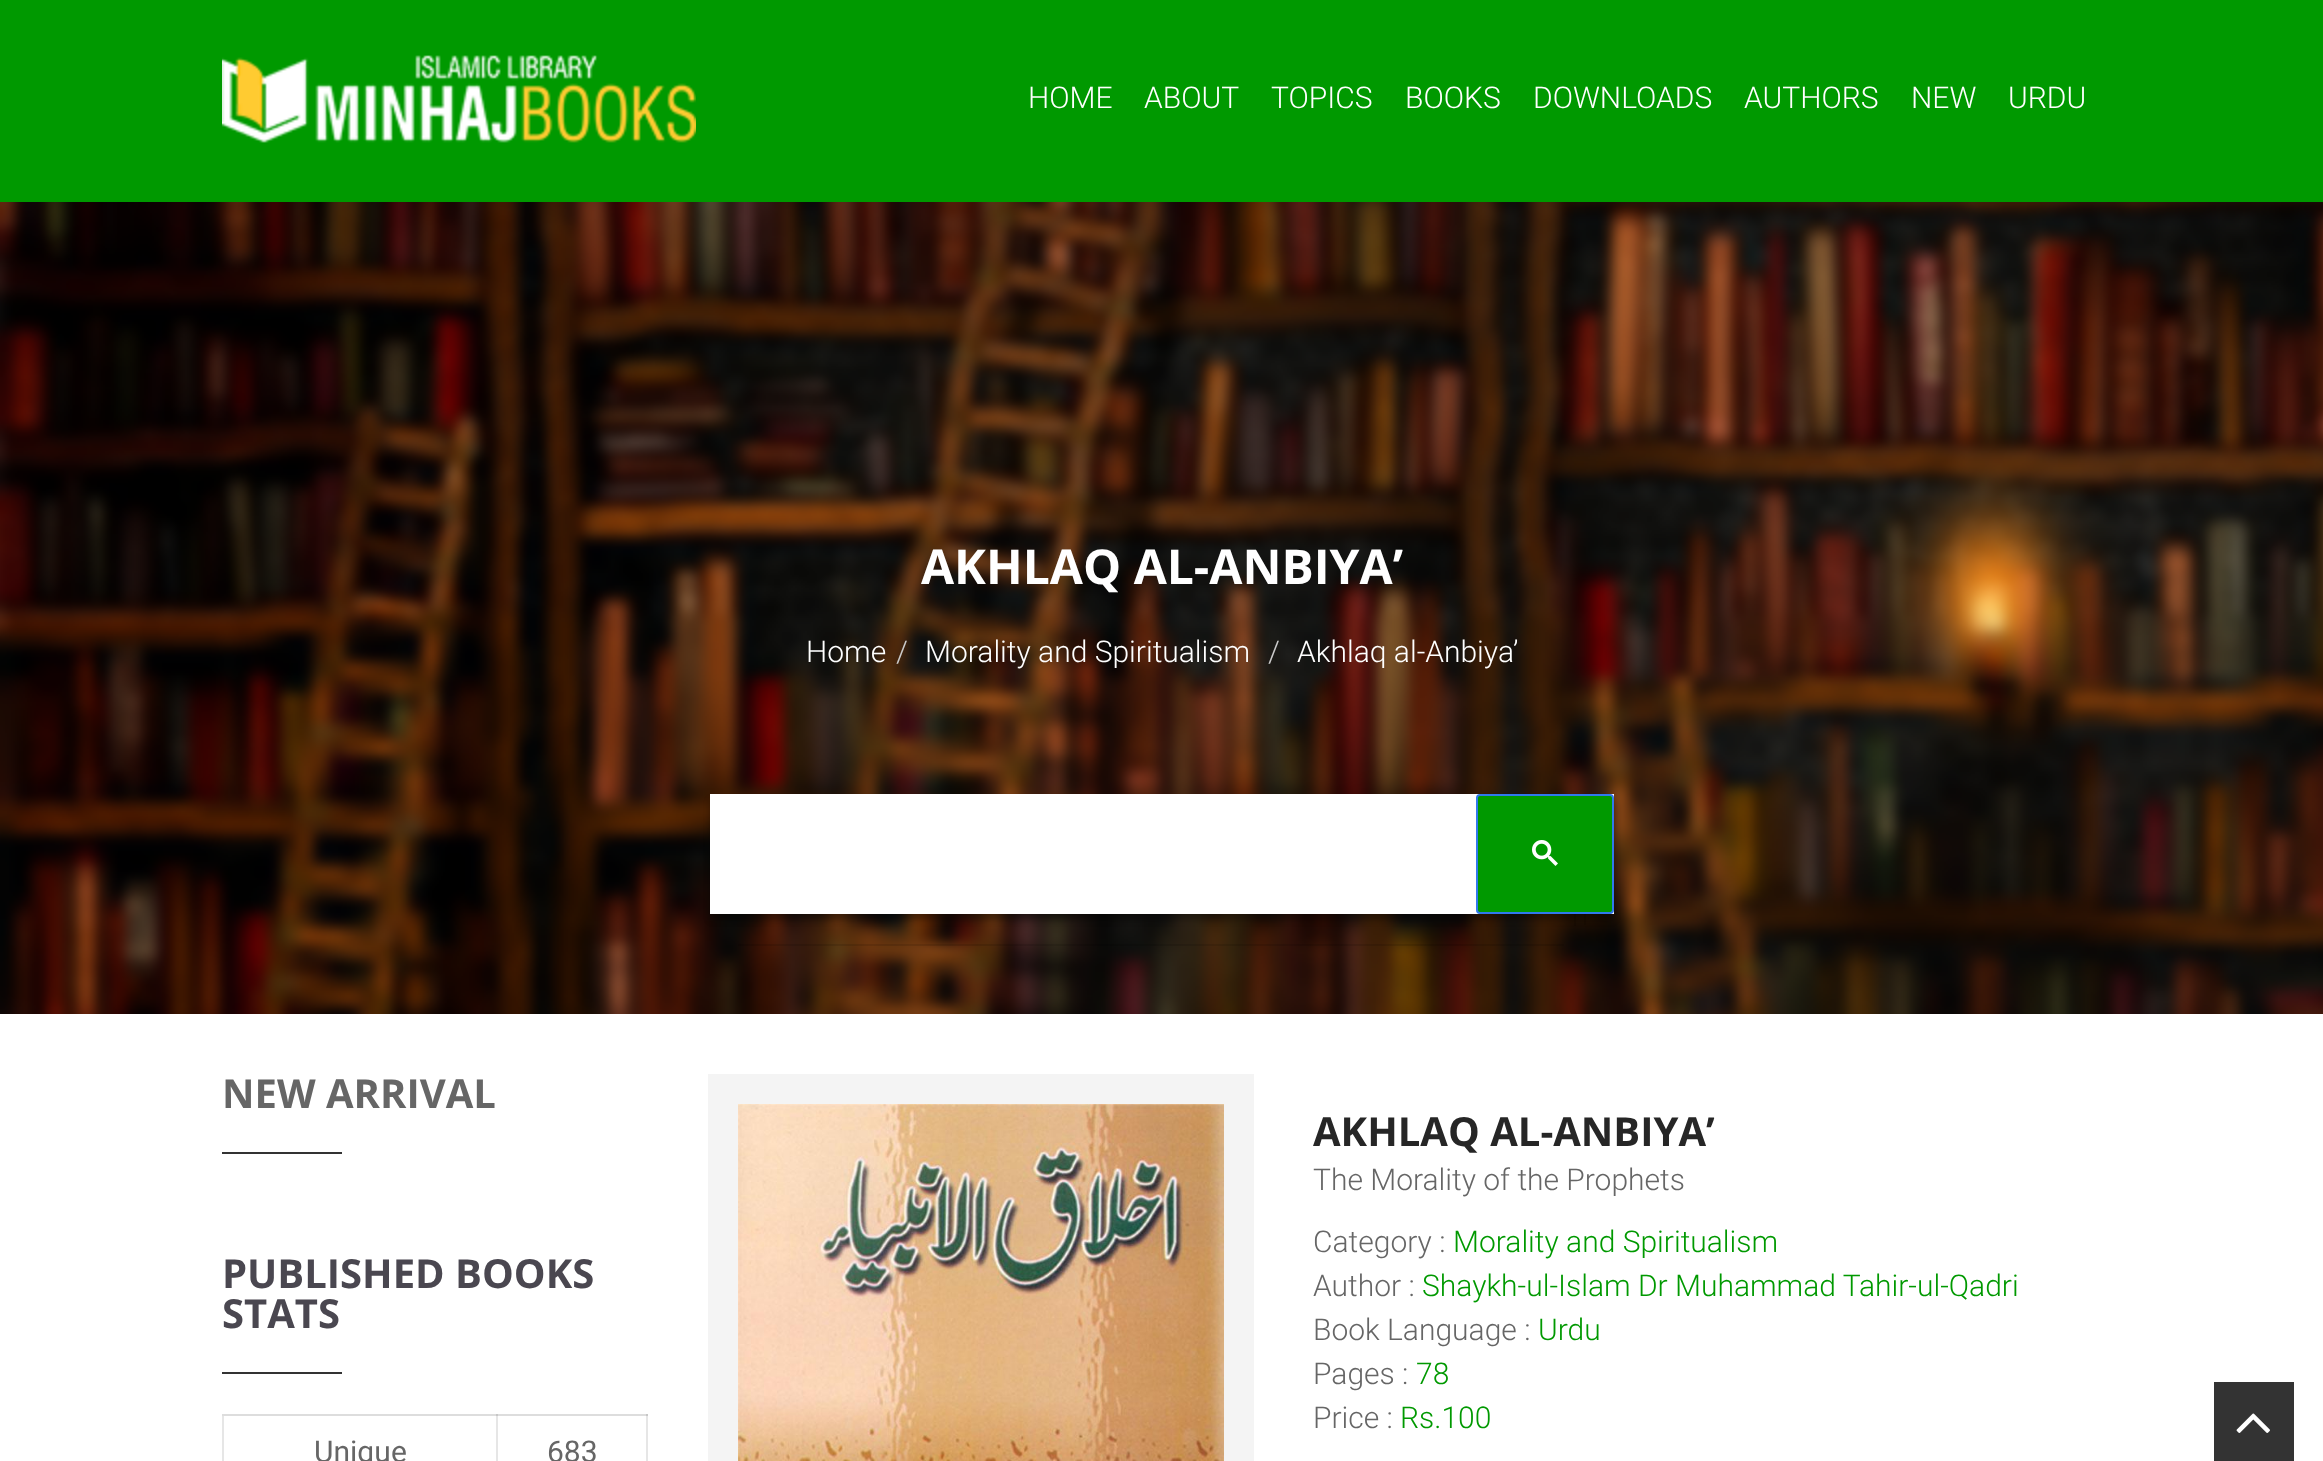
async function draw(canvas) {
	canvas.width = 2323;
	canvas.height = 1461;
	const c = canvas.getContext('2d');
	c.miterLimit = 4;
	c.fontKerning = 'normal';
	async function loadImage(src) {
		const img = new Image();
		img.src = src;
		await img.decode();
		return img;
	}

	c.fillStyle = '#fff';
	c.fillRect(0, 0, 2323, 1461);
	for (const [x, y, w, h, color] of [
		[496, 1414, 2, 47, '#e6e6e6'],
		[646, 1414, 2, 47, '#e6e6e6'],
		[222, 1414, 2, 47, '#e6e6e6'],
		[0, 0, 2323, 202, '#090'],
	]) {
		c.fillStyle = color;
		c.fillRect(x, y, w, h);
	}
	c.drawImage(await loadImage('img1.png'), 222, 55, 474, 88);
	c.font = '300 30px Roboto';
	c.fillStyle = '#fff';
	for (const [text, x, y] of [
		['HOME', 1028, 108],
		['ABOUT', 1144, 108],
		['TOPICS', 1271, 108],
		['BOOKS', 1405, 108],
		['DOWNLOADS', 1533, 108],
		['AUTHORS', 1744, 108],
		['NEW', 1911, 108],
		['URDU', 2008, 108],
	]) {
		c.fillText(text, x, y);
	}
	c.drawImage(await loadImage('img2.png'), 0, 202, 2323, 812);
	c.font = 'bold 48px Open Sans';
	c.fillText('AKHLAQ AL-ANBIYA’', 921, 584);
	c.font = '300 30px Roboto';
	c.fillText('Home', 806, 662);
	c.fillStyle = '#ccc';
	c.fillText('/', 896, 662);
	c.fillStyle = '#fff';
	c.fillText('Morality and Spiritualism', 925, 662);
	c.fillStyle = '#ccc';
	c.fillText('/', 1268, 662);
	c.fillStyle = '#fff';
	c.fillText('Akhlaq al-Anbiya’', 1297, 662);
	c.fillStyle = '#0000004d';
	c.filter = 'blur(3px)';
	c.beginPath();
	c.rect(710, 800, 904, 120);
	c.fill();
	c.filter = 'none';
	c.fillStyle = '#fff';
	c.fillRect(710, 794, 904, 120);
	c.fillStyle = '#0000001a';
	c.fillRect(1584, 914, 2, 11);
	c.fillStyle = '#090';
	c.beginPath();
	c.roundRect(1477, 795, 136, 118, 3);
	c.fill();
	c.strokeStyle = '#3079ed';
	c.lineWidth = 2;
	c.stroke();
	c.drawImage(await loadImage('img3.png'), 1532, 840, 26, 26);
	c.fillStyle = '#0000001a';
	c.fillRect(1574, 914, 2, 12);
	c.fillRect(738, 944, 826, 2);
	c.font = 'bold 40px Open Sans';
	c.fillStyle = '#666';
	c.fillText('NEW ARRIVAL', 222, 1108);
	c.fillStyle = '#333';
	c.fillRect(222, 1152, 120, 2);
	c.fillStyle = '#4a4750';
	c.fillText('PUBLISHED BOOKS', 222, 1288);
	c.fillText('STATS', 222, 1328);
	for (const [x, y, w, h, color] of [
		[222, 1372, 120, 2, '#333'],
		[222, 1414, 426, 2, '#ddd'],
		[496, 1414, 2, 2, '#c7c7c7'],
	]) {
		c.fillStyle = color;
		c.fillRect(x, y, w, h);
	}
	c.font = '30px Roboto';
	c.fillStyle = '#666';
	c.fillText('Unique', 314, 1462);
	c.fillStyle = '#c7c7c7';
	c.fillRect(646, 1414, 2, 2);
	c.fillStyle = '#666';
	c.fillText('683', 547, 1462);
	c.fillStyle = '#f4f4f4';
	c.fillRect(708, 1074, 546, 387);
	c.drawImage(await loadImage('img4.png'), 738, 1104, 486, 357);
	c.font = 'bold 40px Open Sans';
	c.fillStyle = '#262626';
	c.fillText('AKHLAQ AL-ANBIYA’', 1313, 1146);
	c.font = '300 30px Roboto';
	c.fillStyle = '#666';
	c.fillText('The Morality of the Prophets', 1313, 1190);
	c.fillText('Category :', 1313, 1252);
	c.fillStyle = '#090';
	c.fillText('Morality and Spiritualism', 1453, 1252);
	c.fillStyle = '#666';
	c.fillText('Author :', 1313, 1296);
	c.fillStyle = '#090';
	c.fillText('Shaykh-ul-Islam Dr Muhammad Tahir-ul-Qadri', 1422, 1296);
	c.fillStyle = '#666';
	c.fillText('Book Language :', 1313, 1340);
	c.fillStyle = '#090';
	c.fillText('Urdu', 1538, 1340);
	c.fillStyle = '#666';
	c.fillText('Pages :', 1313, 1384);
	c.fillStyle = '#090';
	c.fillText('78', 1416, 1384);
	c.fillStyle = '#666';
	c.fillText('Price :', 1313, 1428);
	c.fillStyle = '#090';
	c.fillText('Rs.100', 1400, 1428);
	c.fillStyle = '#333';
	c.fillRect(2214, 1382, 80, 79);
	c.drawImage(await loadImage('img5.png'), 2236, 1413, 34, 20);
}

draw(document.querySelector('canvas'));
